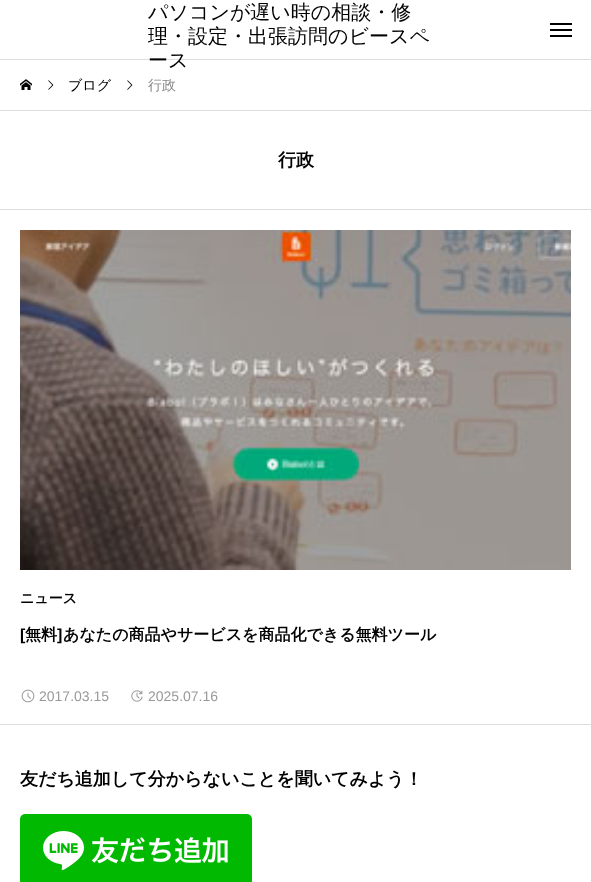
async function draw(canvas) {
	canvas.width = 591;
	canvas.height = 882;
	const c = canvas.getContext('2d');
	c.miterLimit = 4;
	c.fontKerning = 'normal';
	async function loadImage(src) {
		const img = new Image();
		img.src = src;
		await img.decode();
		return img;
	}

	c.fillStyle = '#fff';
	c.fillRect(0, 0, 591, 882);
	c.fillStyle = '#ddd';
	c.fillRect(0, 59, 591, 1);
	c.font = '500 20px WenQuanYi Zen Hei';
	c.fillStyle = '#000';
	for (const [text, x, y] of [
		['パソコンが遅い時の相談・修', 148, 19],
		['理・設定・出張訪問のビースペ', 148, 43],
		['ース', 148, 67],
	]) {
		c.fillText(text, x, y);
	}
	for (const [x, y, w, h, color] of [
		[550, 23, 22, 2, '#000'],
		[550, 29, 22, 2, '#000'],
		[550, 35, 22, 2, '#000'],
	]) {
		c.fillStyle = color;
		c.fillRect(x, y, w, h);
	}
	c.drawImage(await loadImage('img1.png'), 20, 79, 12, 11);
	c.drawImage(await loadImage('img2.png'), 48, 80, 6, 10);
	c.font = '500 14px WenQuanYi Zen Hei';
	c.fillText('ブログ', 68, 90);
	c.drawImage(await loadImage('img2.png'), 127, 80, 6, 10);
	c.fillStyle = '#888';
	c.fillText('行政', 148, 90);
	c.fillStyle = '#ddd';
	c.fillRect(0, 110, 591, 1);
	c.font = 'bold 18px WenQuanYi Zen Hei';
	c.fillStyle = '#000';
	c.fillText('行政', 278, 166);
	c.fillStyle = '#ddd';
	c.fillRect(0, 209, 591, 1);
	c.fillRect(0, 724, 591, 1);
	c.drawImage(await loadImage('img3.png'), 20, 230, 551, 340);
	c.font = 'bold 14px WenQuanYi Zen Hei';
	c.fillStyle = '#000';
	c.fillText('ニュース', 20, 603);
	c.font = 'bold 16px Liberation Sans';
	c.fillText('[', 20, 640);
	c.font = 'bold 16px WenQuanYi Zen Hei';
	c.fillText('無料', 25, 640);
	c.font = 'bold 16px Liberation Sans';
	c.fillText(']', 57, 640);
	c.font = 'bold 16px WenQuanYi Zen Hei';
	c.fillText('あなたの商品やサービスを商品化できる無料ツール', 63, 640);
	c.drawImage(await loadImage('img4.png'), 21, 689, 14, 14);
	c.font = '14px Liberation Sans';
	c.fillStyle = '#999';
	c.fillText('2017.03.15', 39, 701);
	c.drawImage(await loadImage('img5.png'), 131, 690, 12, 12);
	c.fillText('2025.07.16', 148, 701);
	c.font = 'bold 18px WenQuanYi Zen Hei';
	c.fillStyle = '#000';
	c.fillText('友だち追加して分からないことを聞いてみよう！', 20, 785);
	c.drawImage(await loadImage('img6.png'), 20, 814, 232, 68);
}

draw(document.querySelector('canvas'));
